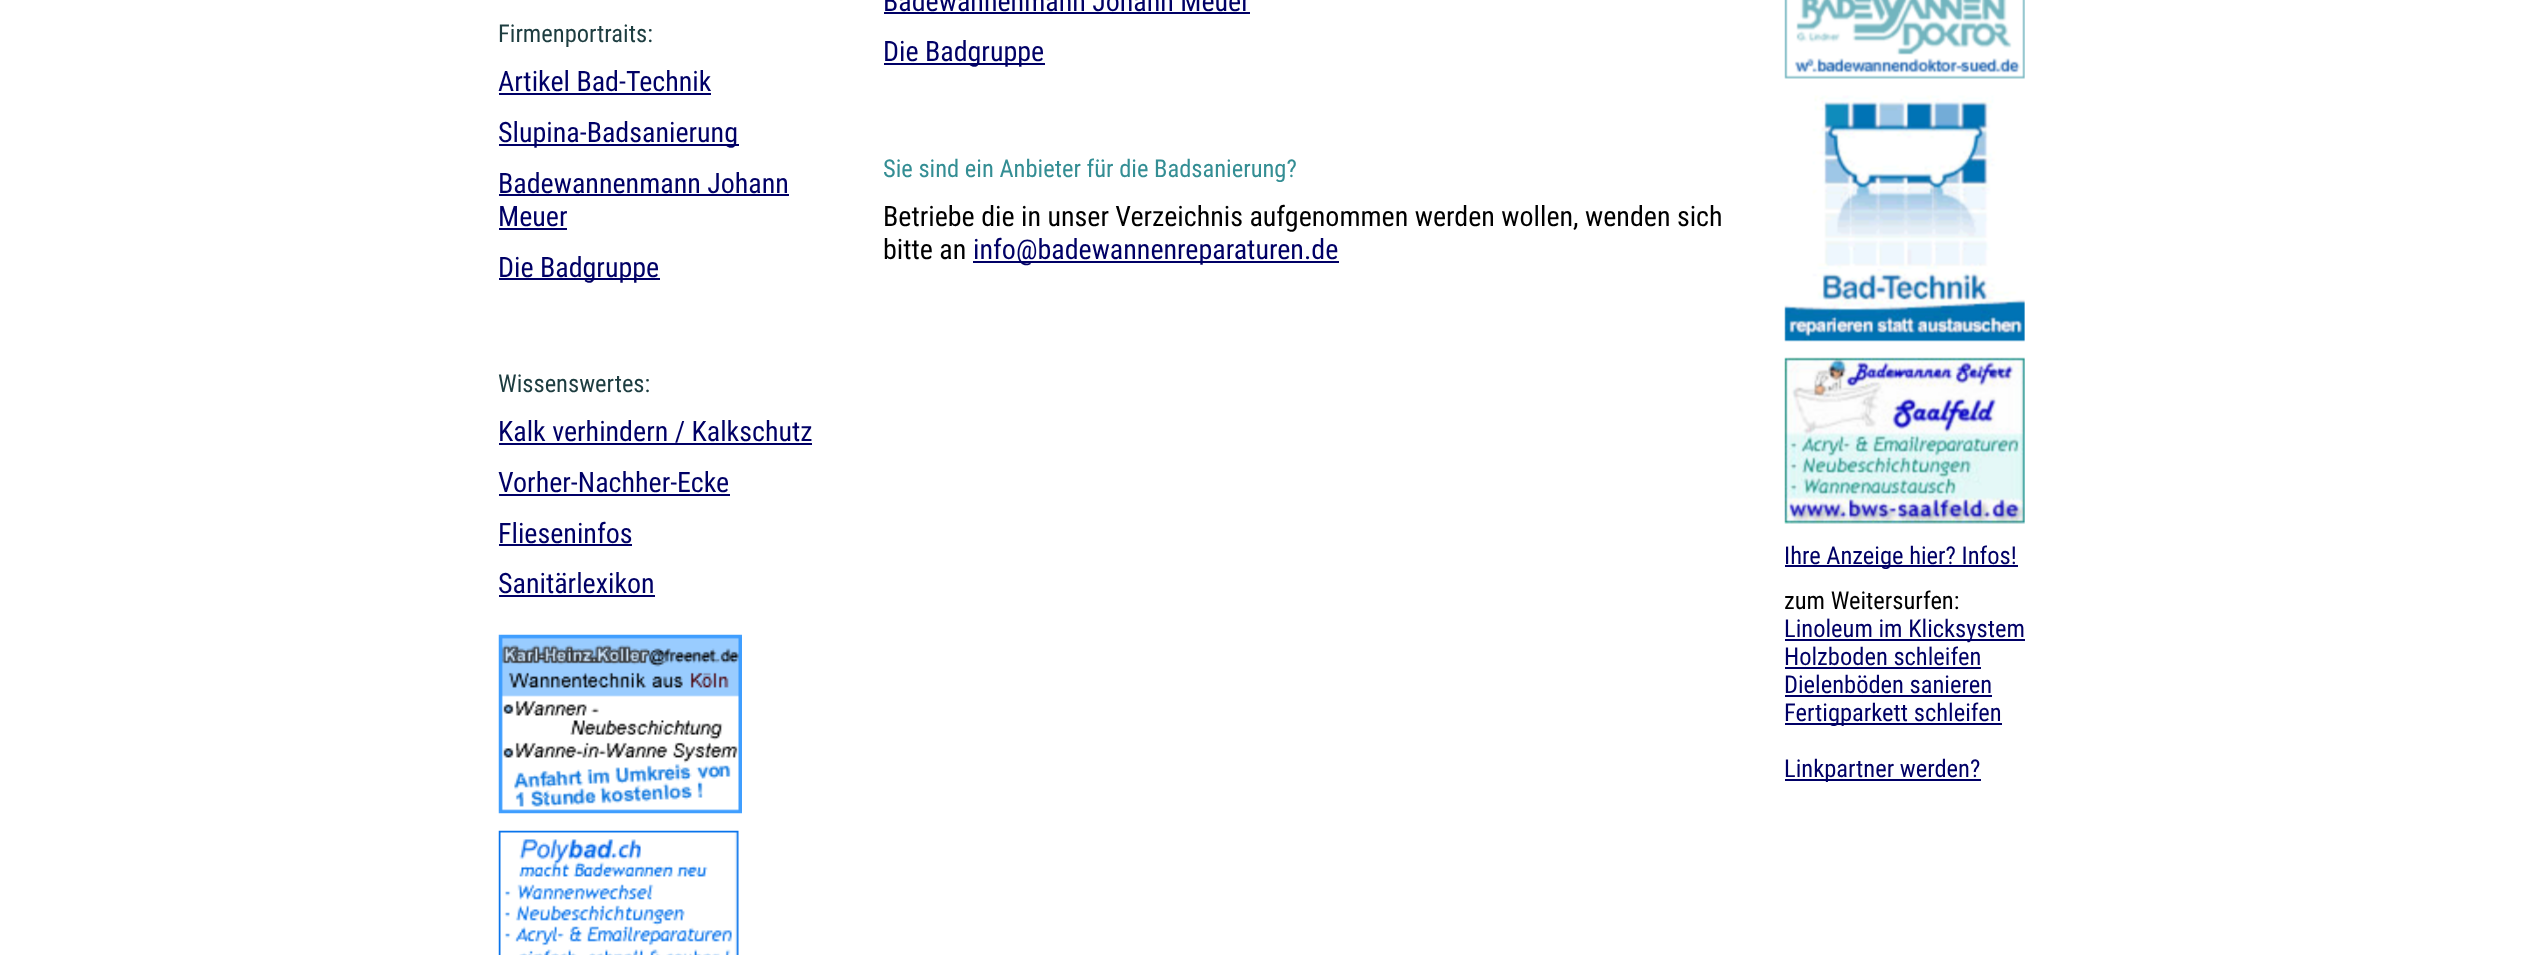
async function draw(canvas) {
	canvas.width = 2535;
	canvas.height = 955;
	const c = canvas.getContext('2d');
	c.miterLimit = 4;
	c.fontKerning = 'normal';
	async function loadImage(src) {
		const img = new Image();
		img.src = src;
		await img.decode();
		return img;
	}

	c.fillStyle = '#fff';
	c.fillRect(0, 0, 2535, 955);
	c.font = '24.5px Roboto Condensed';
	c.fillStyle = '#1d3d40';
	c.fillText('Firmenportraits:', 498, 42);
	c.font = '28px Roboto Condensed';
	c.fillStyle = '#006';
	c.fillText('Artikel Bad-Technik', 498, 91);
	c.fillRect(499, 93, 212, 2);
	c.fillRect(499, 144, 240, 2);
	c.fillText('Slupina-Badsanierung', 498, 142);
	c.fillText('Badewannenmann Johann', 498, 193);
	c.fillRect(499, 194, 290, 2);
	c.fillText('Meuer', 498, 226);
	c.fillRect(499, 228, 68, 2);
	c.fillRect(499, 278, 161, 2);
	c.fillText('Die Badgruppe', 498, 277);
	c.font = '24.5px Roboto Condensed';
	c.fillStyle = '#1d3d40';
	c.fillText('Wissenswertes:', 498, 392);
	c.font = '28px Roboto Condensed';
	c.fillStyle = '#006';
	c.fillText('Kalk verhindern / Kalkschutz', 498, 441);
	c.fillRect(499, 443, 313, 2);
	c.fillText('Vorher-Nachher-Ecke', 498, 492);
	c.fillRect(499, 494, 231, 2);
	c.fillText('Flieseninfos', 498, 543);
	c.fillRect(499, 544, 133, 2);
	c.fillText('Sanitärlexikon', 498, 593);
	c.fillRect(499, 595, 156, 2);
	c.drawImage(await loadImage('img1.png'), 498, 634, 244, 180);
	c.drawImage(await loadImage('img2.png'), 498, 830, 241, 125);
	c.fillText('Badewannenmann Johann Meuer', 883, 11);
	c.fillRect(884, 12, 366, 2);
	c.fillRect(884, 63, 161, 2);
	c.fillText('Die Badgruppe', 883, 61);
	c.font = '24.5px Roboto Condensed';
	c.fillStyle = '#348e94';
	c.fillText('Sie sind ein Anbieter für die Badsanierung?', 883, 177);
	c.font = '28px Roboto Condensed';
	c.fillStyle = '#000';
	c.fillText('Betriebe die in unser Verzeichnis aufgenommen werden wollen, wenden sich', 883, 226);
	c.fillText('bitte an', 883, 259);
	c.fillStyle = '#006';
	c.fillRect(973, 261, 366, 2);
	c.fillText('info@badewannenreparaturen.de', 973, 259);
	c.drawImage(await loadImage('img3.png'), 1784, 0, 241, 79);
	c.drawImage(await loadImage('img4.png'), 1784, 95, 241, 247);
	c.drawImage(await loadImage('img5.png'), 1784, 357, 241, 167);
	c.fillRect(1785, 565, 233, 2);
	c.font = '24.5px Roboto Condensed';
	c.fillText('Ihre Anzeige hier? Infos!', 1784, 564);
	c.fillStyle = '#000';
	c.fillText('zum Weitersurfen:', 1784, 609);
	c.fillStyle = '#006';
	c.fillRect(1785, 639, 240, 2);
	c.fillText('Linoleum im Klicksystem', 1784, 637);
	c.fillText('Holzboden schleifen', 1784, 665);
	c.fillRect(1785, 667, 196, 2);
	c.fillText('Dielenböden sanieren', 1784, 693);
	c.fillRect(1785, 695, 207, 2);
	c.fillRect(1785, 723, 217, 2);
	c.fillText('Fertigparkett schleifen', 1784, 721);
	c.fillRect(1785, 779, 196, 2);
	c.fillText('Linkpartner werden?', 1784, 777);
}

draw(document.querySelector('canvas'));
